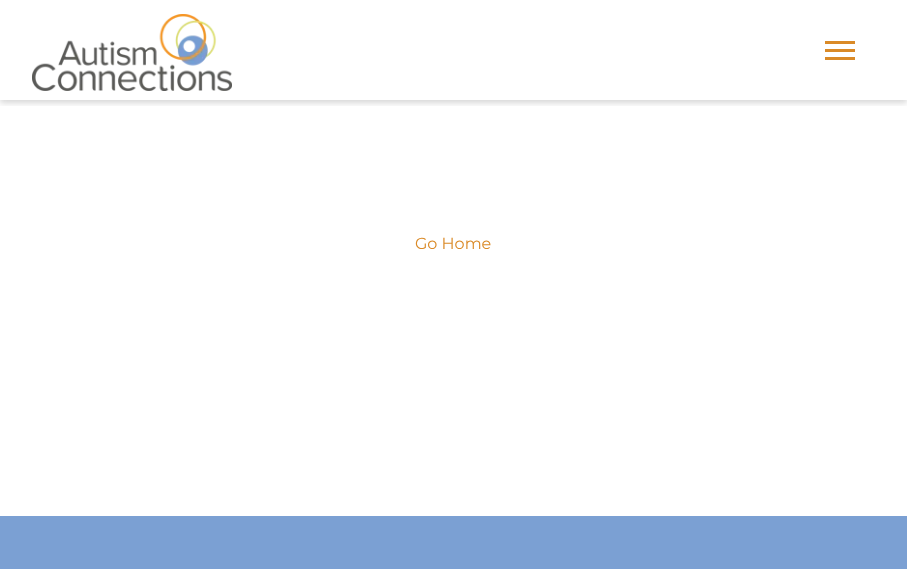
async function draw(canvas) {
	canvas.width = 907;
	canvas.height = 569;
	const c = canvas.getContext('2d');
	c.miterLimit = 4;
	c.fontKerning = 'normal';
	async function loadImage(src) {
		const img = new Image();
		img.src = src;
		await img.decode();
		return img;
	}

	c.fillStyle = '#fff';
	c.fillRect(0, 0, 907, 569);
	c.save();
	c.beginPath();
	c.rect(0, 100, 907, 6);
	c.clip();
	c.fillStyle = '#00000029';
	c.filter = 'blur(3px)';
	c.beginPath();
	c.rect(0, 3, 907, 100);
	c.fill();
	c.filter = 'none';
	c.restore();
	c.drawImage(await loadImage('img1.png'), 32, 14, 200, 77);
	for (const [x, y, w, h, color] of [
		[825, 49, 30, 3, '#da8a27'],
		[825, 41, 30, 3, '#da8a27'],
		[825, 57, 30, 3, '#da8a27'],
	]) {
		c.fillStyle = color;
		c.fillRect(x, y, w, h);
	}
	c.font = '16px Montserrat';
	c.fillText('Go Home', 415, 249);
	c.fillStyle = '#7ba0d3';
	c.fillRect(0, 516, 907, 53);
}

draw(document.querySelector('canvas'));
